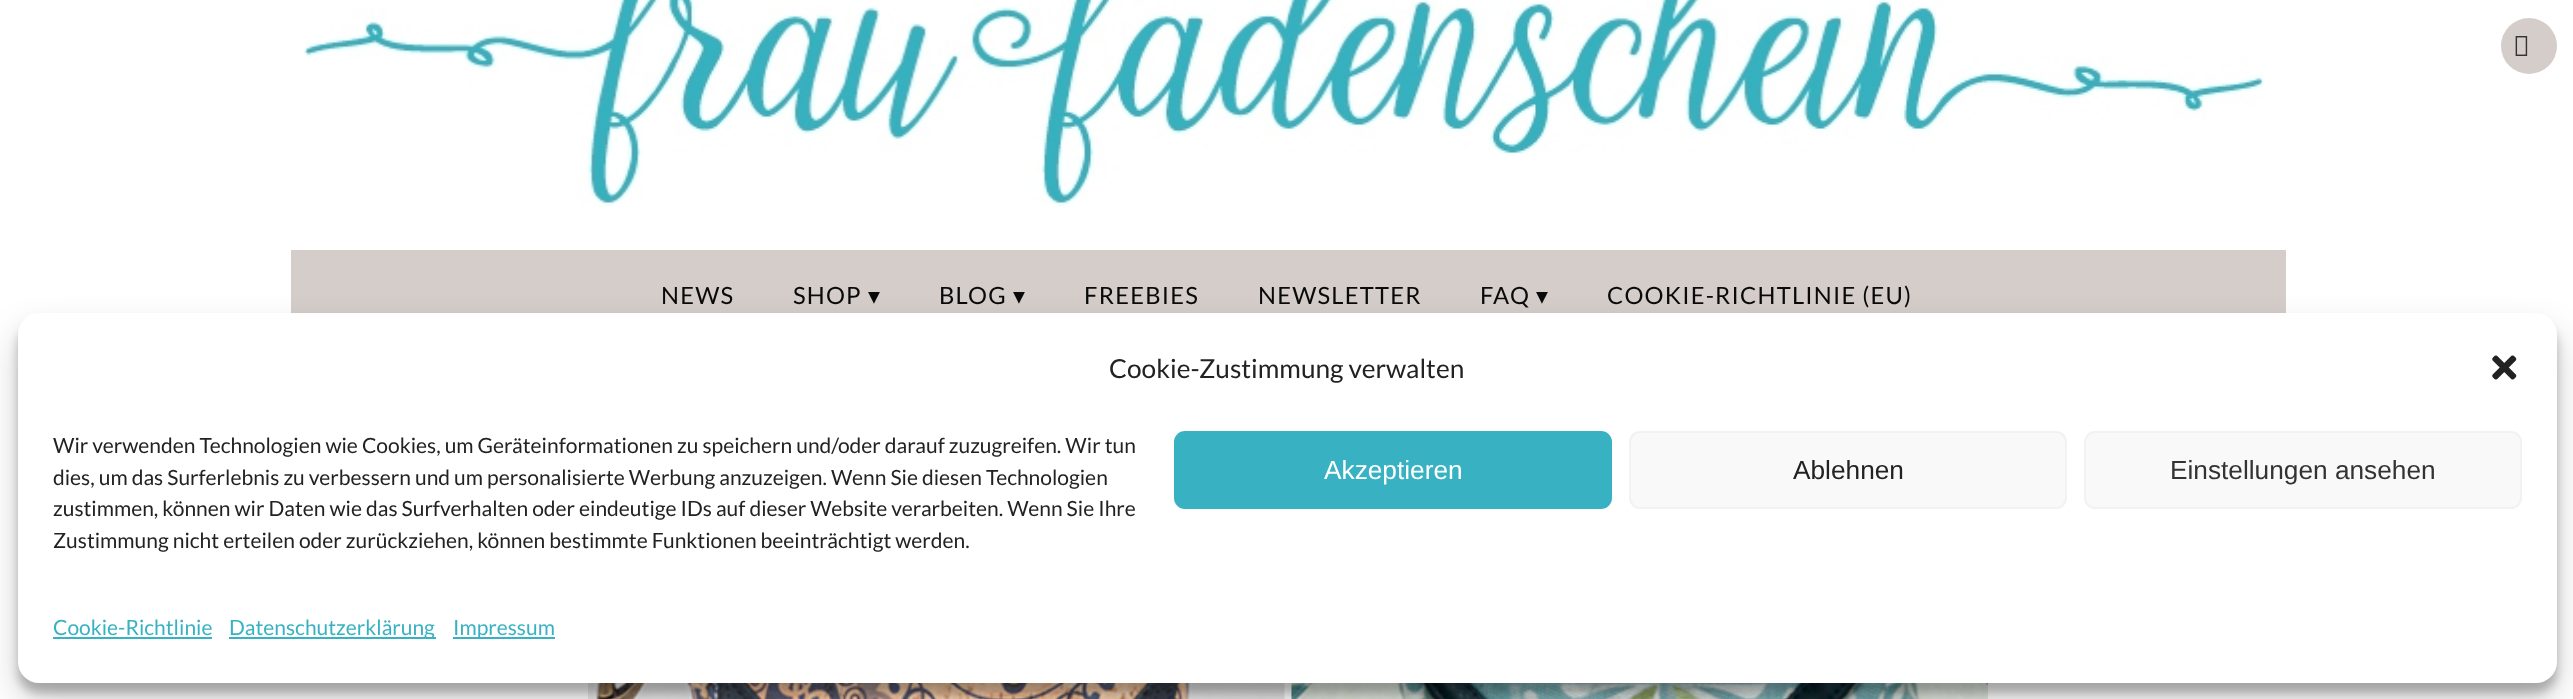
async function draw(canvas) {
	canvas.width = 2573;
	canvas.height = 699;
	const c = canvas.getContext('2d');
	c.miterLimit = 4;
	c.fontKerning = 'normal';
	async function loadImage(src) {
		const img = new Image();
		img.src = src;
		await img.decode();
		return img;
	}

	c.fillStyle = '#fff';
	c.fillRect(0, 0, 2573, 699);
	c.fillStyle = '#d5cdca';
	c.beginPath();
	c.arc(2529, 46, 28, 0, 2 * Math.PI);
	c.fill();
	c.drawImage(await loadImage('img1.png'), 2515, 36, 13, 20);
	c.drawImage(await loadImage('img2.png'), 303, 0, 1961, 207);
	c.fillRect(291, 250, 1995, 63);
	c.letterSpacing = '1.2px';
	c.font = '23.75px Lato';
	c.fillStyle = '#0a0a0a';
	c.fillText('NEWS', 661, 304);
	c.fillText('SHOP', 793, 304);
	c.font = '23.75px DejaVu Sans';
	c.fillText('▾', 868, 304);
	c.font = '23.75px Lato';
	c.fillText('BLOG', 939, 304);
	c.font = '23.75px DejaVu Sans';
	c.fillText('▾', 1013, 304);
	c.font = '23.75px Lato';
	for (const [text, x, y] of [
		['FREEBIES', 1084, 304],
		['NEWSLETTER', 1258, 304],
		['FAQ', 1480, 304],
	]) {
		c.fillText(text, x, y);
	}
	c.font = '23.75px DejaVu Sans';
	c.fillText('▾', 1536, 304);
	c.font = '23.75px Lato';
	c.fillText('COOKIE-RICHTLINIE (EU)', 1607, 304);
	c.drawImage(await loadImage('img3.png'), 588, 683, 1400, 16);
	c.fillStyle = '#0000003b';
	c.filter = 'blur(5px)';
	c.beginPath();
	c.roundRect(18, 324, 2539, 369, 21);
	c.fill();
	c.filter = 'none';
	c.fillStyle = '#00000030';
	c.filter = 'blur(17.5px)';
	c.beginPath();
	c.roundRect(18, 331, 2539, 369, 21);
	c.fill();
	c.filter = 'none';
	c.fillStyle = '#fff';
	c.beginPath();
	c.roundRect(18, 313, 2539, 370, 21);
	c.fill();
	c.letterSpacing = '0px';
	c.font = '26.25px Lato';
	c.fillStyle = '#222';
	c.fillText('Cookie-Zustimmung verwalten', 1109, 378);
	c.drawImage(await loadImage('img4.png'), 2492, 355, 25, 25);
	c.font = '21px Lato';
	for (const [text, x, y] of [
		['Wir verwenden Technologien wie Cookies, um Geräteinformationen zu speichern und/oder darauf zuzugreifen. Wir tun', 53, 453],
		['dies, um das Surferlebnis zu verbessern und um personalisierte Werbung anzuzeigen. Wenn Sie diesen Technologien', 53, 485],
		['zustimmen, können wir Daten wie das Surfverhalten oder eindeutige IDs auf dieser Website verarbeiten. Wenn Sie Ihre', 53, 516],
		['Zustimmung nicht erteilen oder zurückziehen, können bestimmte Funktionen beeinträchtigt werden.', 53, 548],
	]) {
		c.fillText(text, x, y);
	}
	c.fillStyle = '#38b2c3';
	c.beginPath();
	c.roundRect(1175, 432, 436, 76, 10);
	c.fill();
	c.strokeStyle = '#38b2c3';
	c.lineWidth = 2;
	c.stroke();
	c.font = '26.25px Liberation Sans';
	c.fillStyle = '#fff';
	c.fillText('Akzeptieren', 1324, 479);
	c.fillStyle = '#f9f9f9';
	c.beginPath();
	c.roundRect(1630, 432, 436, 76, 10);
	c.fill();
	c.strokeStyle = '#f2f2f2';
	c.stroke();
	c.fillStyle = '#222';
	c.fillText('Ablehnen', 1793, 479);
	c.fillStyle = '#f9f9f9';
	c.beginPath();
	c.roundRect(2085, 432, 436, 76, 10);
	c.fill();
	c.stroke();
	c.fillStyle = '#333';
	c.fillText('Einstellungen ansehen', 2170, 479);
	c.font = '21px Lato';
	c.fillStyle = '#38b2c3';
	c.fillText('Cookie-Richtlinie', 53, 635);
	c.fillRect(53, 637, 159, 2);
	c.fillRect(229, 637, 207, 2);
	c.fillText('Datenschutzerklärung', 229, 635);
	c.fillRect(453, 637, 102, 2);
	c.fillText('Impressum', 453, 635);
}

draw(document.querySelector('canvas'));
